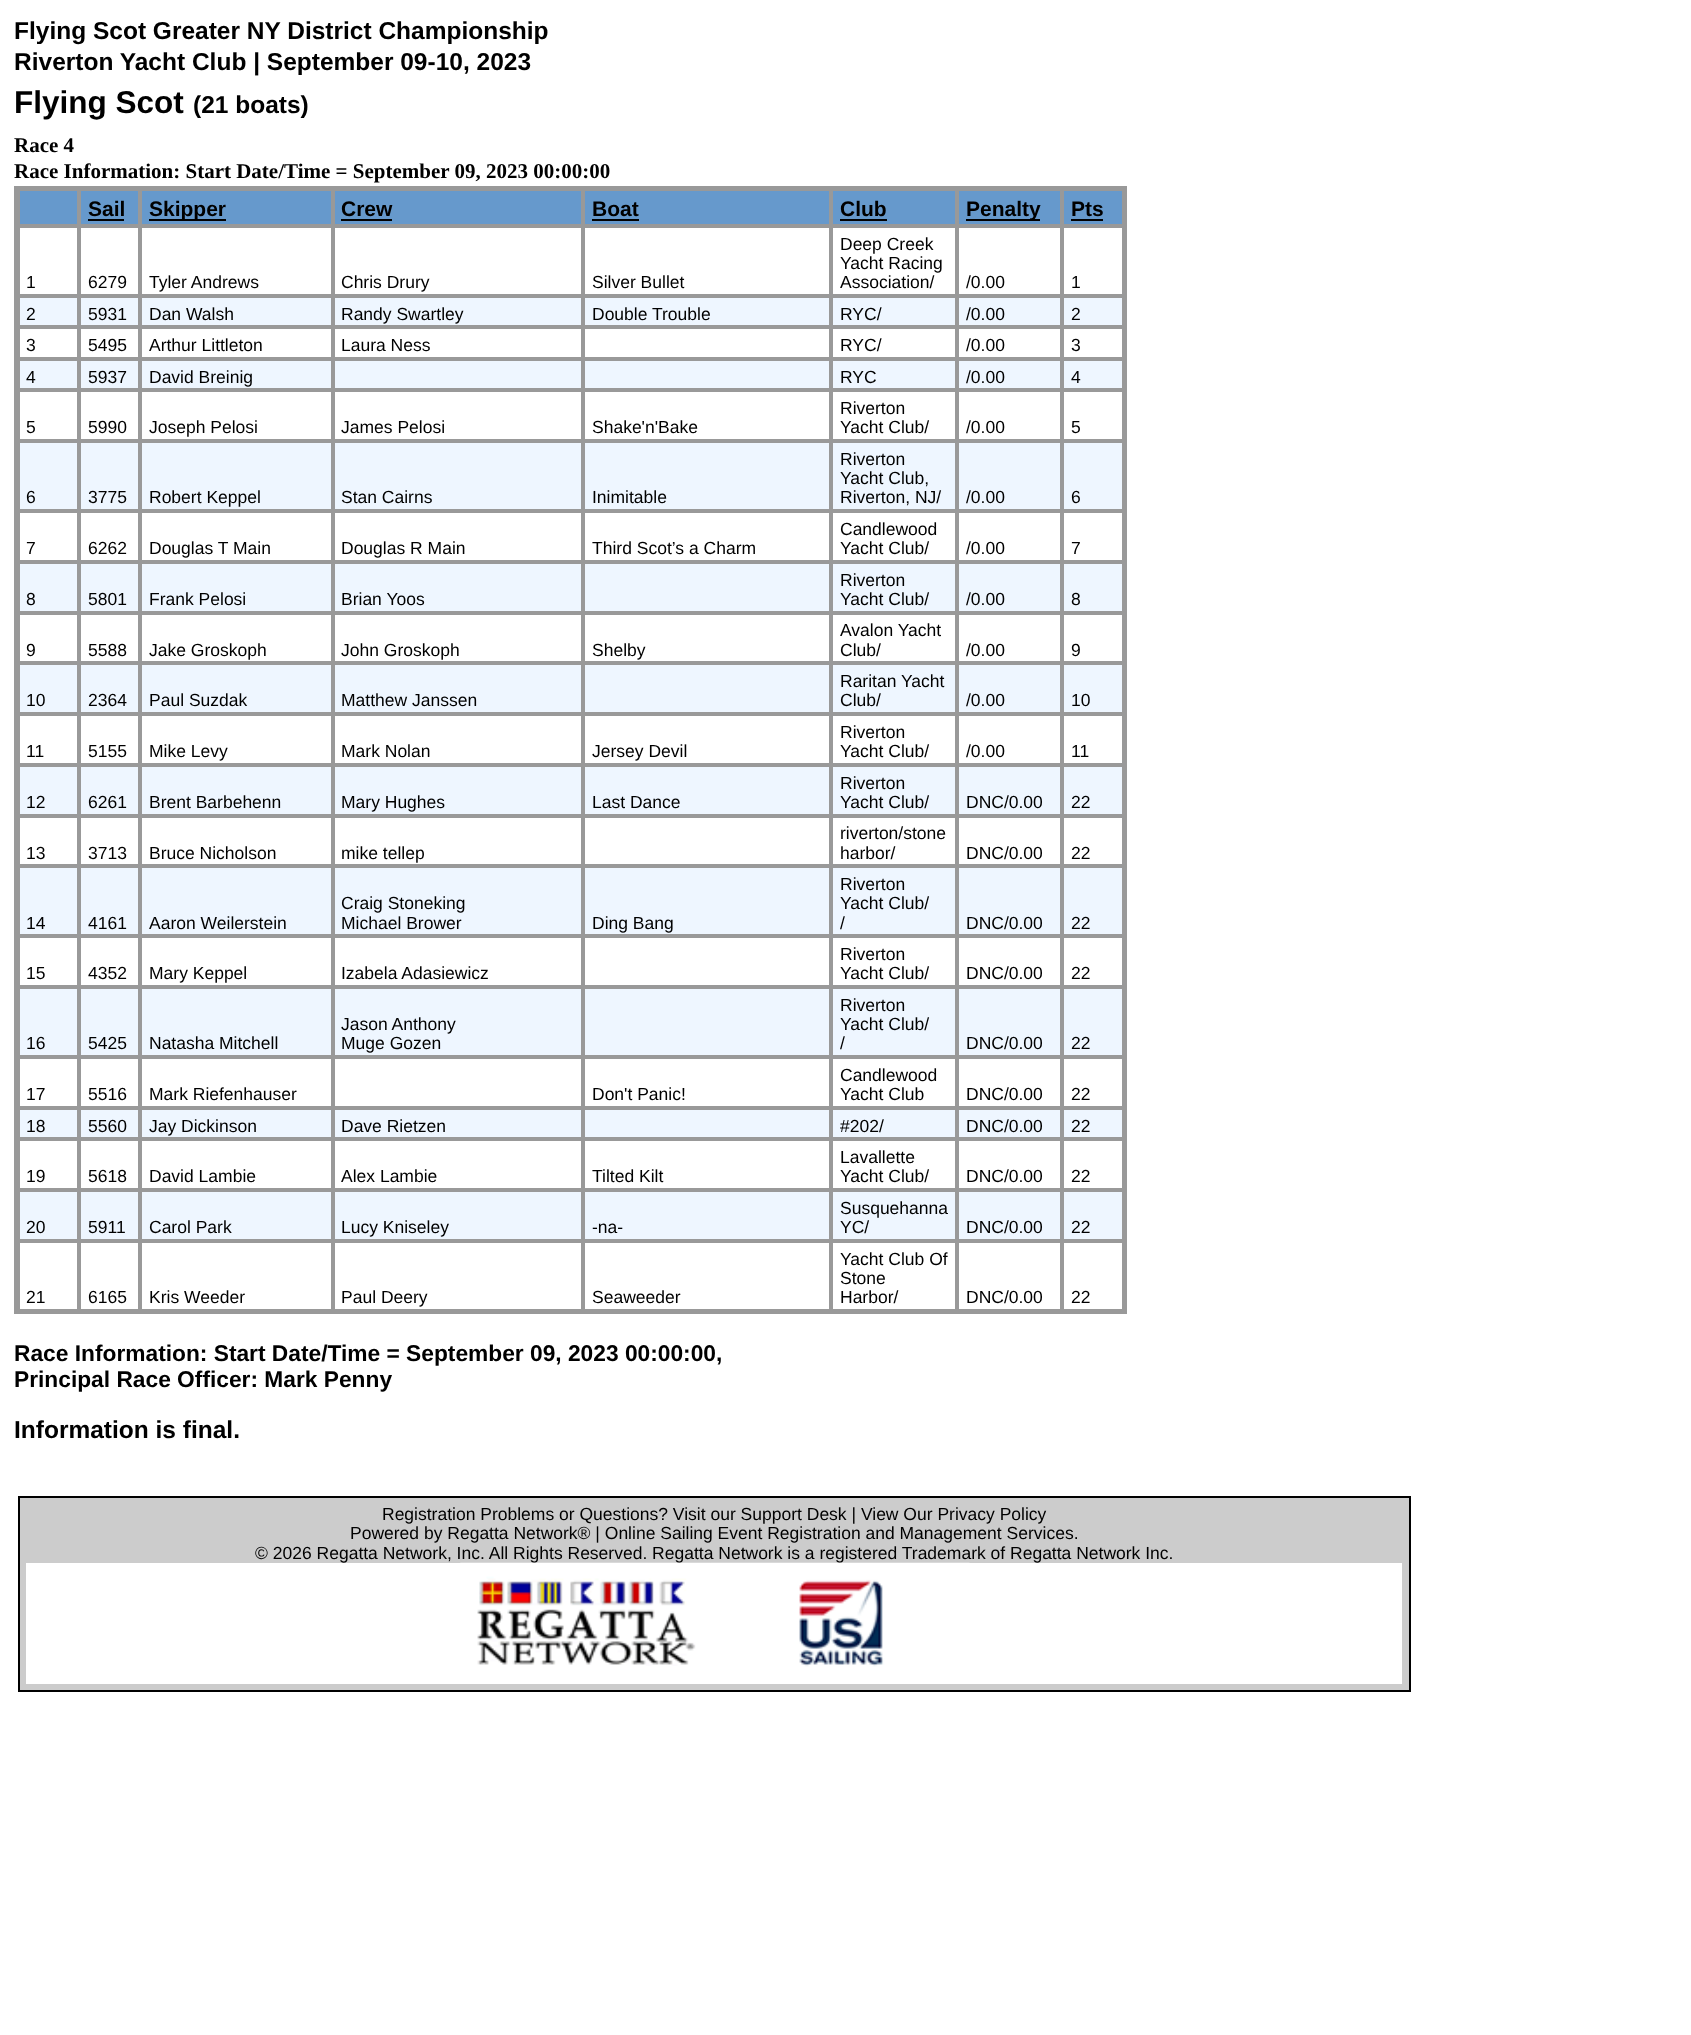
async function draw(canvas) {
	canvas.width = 1691;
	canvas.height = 2035;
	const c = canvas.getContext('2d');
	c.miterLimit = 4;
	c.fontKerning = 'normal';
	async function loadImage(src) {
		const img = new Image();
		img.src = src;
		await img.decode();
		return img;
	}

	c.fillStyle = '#fff';
	c.fillRect(0, 0, 1691, 2035);
	c.font = 'bold 24.5px Liberation Sans';
	c.fillStyle = '#000';
	c.fillText('Flying Scot Greater NY District Championship', 14, 39);
	c.fillText('Riverton Yacht Club | September 09-10, 2023', 14, 70);
	c.font = 'bold 31.5px Liberation Sans';
	c.fillText('Flying Scot', 14, 113);
	c.font = 'bold 24.5px Liberation Sans';
	c.fillText('(21 boats)', 193, 113);
	c.font = 'bold 21px Liberation Serif';
	c.fillText('Race 4', 14, 152);
	c.fillText('Race Information: Start Date/Time = September 09, 2023 00:00:00', 14, 178);
	for (const [x, y, w, h, color] of [
		[14, 186, 1113, 1128, '#999'],
		[20, 191, 57, 33, '#69c'],
		[81, 191, 57, 33, '#69c'],
	]) {
		c.fillStyle = color;
		c.fillRect(x, y, w, h);
	}
	c.font = 'bold 21px Liberation Sans';
	c.fillStyle = '#000';
	c.fillText('Sail', 88, 216);
	for (const [x, y, w, h, color] of [
		[88, 219, 36, 2, '#000'],
		[142, 191, 189, 33, '#69c'],
		[149, 219, 77, 2, '#000'],
	]) {
		c.fillStyle = color;
		c.fillRect(x, y, w, h);
	}
	c.fillText('Skipper', 149, 216);
	c.fillStyle = '#69c';
	c.fillRect(335, 191, 246, 33);
	c.fillStyle = '#000';
	c.fillText('Crew', 341, 216);
	c.fillRect(341, 219, 51, 2);
	c.fillStyle = '#69c';
	c.fillRect(585, 191, 244, 33);
	c.fillStyle = '#000';
	c.fillText('Boat', 592, 216);
	c.fillRect(592, 219, 47, 2);
	c.fillStyle = '#69c';
	c.fillRect(833, 191, 122, 33);
	c.fillStyle = '#000';
	c.fillText('Club', 840, 216);
	for (const [x, y, w, h, color] of [
		[840, 219, 47, 2, '#000'],
		[959, 191, 101, 33, '#69c'],
		[966, 219, 74, 2, '#000'],
	]) {
		c.fillStyle = color;
		c.fillRect(x, y, w, h);
	}
	c.fillText('Penalty', 966, 216);
	c.fillStyle = '#69c';
	c.fillRect(1064, 191, 58, 33);
	c.fillStyle = '#000';
	c.fillText('Pts', 1071, 216);
	c.fillRect(1071, 219, 32, 2);
	c.fillStyle = '#fff';
	c.fillRect(20, 228, 57, 66);
	c.font = '17.5px Liberation Sans';
	c.fillStyle = '#000';
	c.fillText('1', 26, 288);
	c.fillStyle = '#fff';
	c.fillRect(81, 228, 57, 66);
	c.fillStyle = '#000';
	c.fillText('6279', 88, 288);
	c.fillStyle = '#fff';
	c.fillRect(142, 228, 189, 66);
	c.fillStyle = '#000';
	c.fillText('Tyler Andrews', 149, 288);
	c.fillStyle = '#fff';
	c.fillRect(335, 228, 246, 66);
	c.fillStyle = '#000';
	c.fillText('Chris Drury', 341, 288);
	c.fillStyle = '#fff';
	c.fillRect(585, 228, 244, 66);
	c.fillStyle = '#000';
	c.fillText('Silver Bullet', 592, 288);
	c.fillStyle = '#fff';
	c.fillRect(833, 228, 122, 66);
	c.fillStyle = '#000';
	for (const [text, x, y] of [
		['Deep Creek', 840, 250],
		['Yacht Racing', 840, 269],
		['Association/', 840, 288],
	]) {
		c.fillText(text, x, y);
	}
	c.fillStyle = '#fff';
	c.fillRect(959, 228, 101, 66);
	c.fillStyle = '#000';
	c.fillText('/0.00', 966, 288);
	c.fillStyle = '#fff';
	c.fillRect(1064, 228, 58, 66);
	c.fillStyle = '#000';
	c.fillText('1', 1071, 288);
	c.fillStyle = '#eef6ff';
	c.fillRect(20, 298, 57, 27);
	c.fillStyle = '#000';
	c.fillText('2', 26, 320);
	c.fillStyle = '#eef6ff';
	c.fillRect(81, 298, 57, 27);
	c.fillStyle = '#000';
	c.fillText('5931', 88, 320);
	c.fillStyle = '#eef6ff';
	c.fillRect(142, 298, 189, 27);
	c.fillStyle = '#000';
	c.fillText('Dan Walsh', 149, 320);
	c.fillStyle = '#eef6ff';
	c.fillRect(335, 298, 246, 27);
	c.fillStyle = '#000';
	c.fillText('Randy Swartley', 341, 320);
	c.fillStyle = '#eef6ff';
	c.fillRect(585, 298, 244, 27);
	c.fillStyle = '#000';
	c.fillText('Double Trouble', 592, 320);
	c.fillStyle = '#eef6ff';
	c.fillRect(833, 298, 122, 27);
	c.fillStyle = '#000';
	c.fillText('RYC/', 840, 320);
	c.fillStyle = '#eef6ff';
	c.fillRect(959, 298, 101, 27);
	c.fillStyle = '#000';
	c.fillText('/0.00', 966, 320);
	c.fillStyle = '#eef6ff';
	c.fillRect(1064, 298, 58, 27);
	c.fillStyle = '#000';
	c.fillText('2', 1071, 320);
	c.fillStyle = '#fff';
	c.fillRect(20, 329, 57, 28);
	c.fillStyle = '#000';
	c.fillText('3', 26, 351);
	c.fillStyle = '#fff';
	c.fillRect(81, 329, 57, 28);
	c.fillStyle = '#000';
	c.fillText('5495', 88, 351);
	c.fillStyle = '#fff';
	c.fillRect(142, 329, 189, 28);
	c.fillStyle = '#000';
	c.fillText('Arthur Littleton', 149, 351);
	c.fillStyle = '#fff';
	c.fillRect(335, 329, 246, 28);
	c.fillStyle = '#000';
	c.fillText('Laura Ness', 341, 351);
	c.fillStyle = '#fff';
	c.fillRect(585, 329, 244, 28);
	c.fillRect(833, 329, 122, 28);
	c.fillStyle = '#000';
	c.fillText('RYC/', 840, 351);
	c.fillStyle = '#fff';
	c.fillRect(959, 329, 101, 28);
	c.fillStyle = '#000';
	c.fillText('/0.00', 966, 351);
	c.fillStyle = '#fff';
	c.fillRect(1064, 329, 58, 28);
	c.fillStyle = '#000';
	c.fillText('3', 1071, 351);
	c.fillStyle = '#eef6ff';
	c.fillRect(20, 361, 57, 27);
	c.fillStyle = '#000';
	c.fillText('4', 26, 383);
	c.fillStyle = '#eef6ff';
	c.fillRect(81, 361, 57, 27);
	c.fillStyle = '#000';
	c.fillText('5937', 88, 383);
	c.fillStyle = '#eef6ff';
	c.fillRect(142, 361, 189, 27);
	c.fillStyle = '#000';
	c.fillText('David Breinig', 149, 383);
	for (const [x, y, w, h, color] of [
		[335, 361, 246, 27, '#eef6ff'],
		[585, 361, 244, 27, '#eef6ff'],
		[833, 361, 122, 27, '#eef6ff'],
	]) {
		c.fillStyle = color;
		c.fillRect(x, y, w, h);
	}
	c.fillStyle = '#000';
	c.fillText('RYC', 840, 383);
	c.fillStyle = '#eef6ff';
	c.fillRect(959, 361, 101, 27);
	c.fillStyle = '#000';
	c.fillText('/0.00', 966, 383);
	c.fillStyle = '#eef6ff';
	c.fillRect(1064, 361, 58, 27);
	c.fillStyle = '#000';
	c.fillText('4', 1071, 383);
	c.fillStyle = '#fff';
	c.fillRect(20, 392, 57, 47);
	c.fillStyle = '#000';
	c.fillText('5', 26, 433);
	c.fillStyle = '#fff';
	c.fillRect(81, 392, 57, 47);
	c.fillStyle = '#000';
	c.fillText('5990', 88, 433);
	c.fillStyle = '#fff';
	c.fillRect(142, 392, 189, 47);
	c.fillStyle = '#000';
	c.fillText('Joseph Pelosi', 149, 433);
	c.fillStyle = '#fff';
	c.fillRect(335, 392, 246, 47);
	c.fillStyle = '#000';
	c.fillText('James Pelosi', 341, 433);
	c.fillStyle = '#fff';
	c.fillRect(585, 392, 244, 47);
	c.fillStyle = '#000';
	c.fillText('Shake\'n\'Bake', 592, 433);
	c.fillStyle = '#fff';
	c.fillRect(833, 392, 122, 47);
	c.fillStyle = '#000';
	c.fillText('Riverton', 840, 414);
	c.fillText('Yacht Club/', 840, 433);
	c.fillStyle = '#fff';
	c.fillRect(959, 392, 101, 47);
	c.fillStyle = '#000';
	c.fillText('/0.00', 966, 433);
	c.fillStyle = '#fff';
	c.fillRect(1064, 392, 58, 47);
	c.fillStyle = '#000';
	c.fillText('5', 1071, 433);
	c.fillStyle = '#eef6ff';
	c.fillRect(20, 443, 57, 66);
	c.fillStyle = '#000';
	c.fillText('6', 26, 503);
	c.fillStyle = '#eef6ff';
	c.fillRect(81, 443, 57, 66);
	c.fillStyle = '#000';
	c.fillText('3775', 88, 503);
	c.fillStyle = '#eef6ff';
	c.fillRect(142, 443, 189, 66);
	c.fillStyle = '#000';
	c.fillText('Robert Keppel', 149, 503);
	c.fillStyle = '#eef6ff';
	c.fillRect(335, 443, 246, 66);
	c.fillStyle = '#000';
	c.fillText('Stan Cairns', 341, 503);
	c.fillStyle = '#eef6ff';
	c.fillRect(585, 443, 244, 66);
	c.fillStyle = '#000';
	c.fillText('Inimitable', 592, 503);
	c.fillStyle = '#eef6ff';
	c.fillRect(833, 443, 122, 66);
	c.fillStyle = '#000';
	for (const [text, x, y] of [
		['Riverton', 840, 465],
		['Yacht Club,', 840, 484],
		['Riverton, NJ/', 840, 503],
	]) {
		c.fillText(text, x, y);
	}
	c.fillStyle = '#eef6ff';
	c.fillRect(959, 443, 101, 66);
	c.fillStyle = '#000';
	c.fillText('/0.00', 966, 503);
	c.fillStyle = '#eef6ff';
	c.fillRect(1064, 443, 58, 66);
	c.fillStyle = '#000';
	c.fillText('6', 1071, 503);
	c.fillStyle = '#fff';
	c.fillRect(20, 513, 57, 47);
	c.fillStyle = '#000';
	c.fillText('7', 26, 554);
	c.fillStyle = '#fff';
	c.fillRect(81, 513, 57, 47);
	c.fillStyle = '#000';
	c.fillText('6262', 88, 554);
	c.fillStyle = '#fff';
	c.fillRect(142, 513, 189, 47);
	c.fillStyle = '#000';
	c.fillText('Douglas T Main', 149, 554);
	c.fillStyle = '#fff';
	c.fillRect(335, 513, 246, 47);
	c.fillStyle = '#000';
	c.fillText('Douglas R Main', 341, 554);
	c.fillStyle = '#fff';
	c.fillRect(585, 513, 244, 47);
	c.fillStyle = '#000';
	c.fillText('Third Scot’s a Charm', 592, 554);
	c.fillStyle = '#fff';
	c.fillRect(833, 513, 122, 47);
	c.fillStyle = '#000';
	c.fillText('Candlewood', 840, 535);
	c.fillText('Yacht Club/', 840, 554);
	c.fillStyle = '#fff';
	c.fillRect(959, 513, 101, 47);
	c.fillStyle = '#000';
	c.fillText('/0.00', 966, 554);
	c.fillStyle = '#fff';
	c.fillRect(1064, 513, 58, 47);
	c.fillStyle = '#000';
	c.fillText('7', 1071, 554);
	c.fillStyle = '#eef6ff';
	c.fillRect(20, 564, 57, 47);
	c.fillStyle = '#000';
	c.fillText('8', 26, 605);
	c.fillStyle = '#eef6ff';
	c.fillRect(81, 564, 57, 47);
	c.fillStyle = '#000';
	c.fillText('5801', 88, 605);
	c.fillStyle = '#eef6ff';
	c.fillRect(142, 564, 189, 47);
	c.fillStyle = '#000';
	c.fillText('Frank Pelosi', 149, 605);
	c.fillStyle = '#eef6ff';
	c.fillRect(335, 564, 246, 47);
	c.fillStyle = '#000';
	c.fillText('Brian Yoos', 341, 605);
	c.fillStyle = '#eef6ff';
	c.fillRect(585, 564, 244, 47);
	c.fillRect(833, 564, 122, 47);
	c.fillStyle = '#000';
	c.fillText('Riverton', 840, 586);
	c.fillText('Yacht Club/', 840, 605);
	c.fillStyle = '#eef6ff';
	c.fillRect(959, 564, 101, 47);
	c.fillStyle = '#000';
	c.fillText('/0.00', 966, 605);
	c.fillStyle = '#eef6ff';
	c.fillRect(1064, 564, 58, 47);
	c.fillStyle = '#000';
	c.fillText('8', 1071, 605);
	c.fillStyle = '#fff';
	c.fillRect(20, 615, 57, 46);
	c.fillStyle = '#000';
	c.fillText('9', 26, 656);
	c.fillStyle = '#fff';
	c.fillRect(81, 615, 57, 46);
	c.fillStyle = '#000';
	c.fillText('5588', 88, 656);
	c.fillStyle = '#fff';
	c.fillRect(142, 615, 189, 46);
	c.fillStyle = '#000';
	c.fillText('Jake Groskoph', 149, 656);
	c.fillStyle = '#fff';
	c.fillRect(335, 615, 246, 46);
	c.fillStyle = '#000';
	c.fillText('John Groskoph', 341, 656);
	c.fillStyle = '#fff';
	c.fillRect(585, 615, 244, 46);
	c.fillStyle = '#000';
	c.fillText('Shelby', 592, 656);
	c.fillStyle = '#fff';
	c.fillRect(833, 615, 122, 46);
	c.fillStyle = '#000';
	c.fillText('Avalon Yacht', 840, 636);
	c.fillText('Club/', 840, 656);
	c.fillStyle = '#fff';
	c.fillRect(959, 615, 101, 46);
	c.fillStyle = '#000';
	c.fillText('/0.00', 966, 656);
	c.fillStyle = '#fff';
	c.fillRect(1064, 615, 58, 46);
	c.fillStyle = '#000';
	c.fillText('9', 1071, 656);
	c.fillStyle = '#eef6ff';
	c.fillRect(20, 665, 57, 47);
	c.fillStyle = '#000';
	c.fillText('10', 26, 706);
	c.fillStyle = '#eef6ff';
	c.fillRect(81, 665, 57, 47);
	c.fillStyle = '#000';
	c.fillText('2364', 88, 706);
	c.fillStyle = '#eef6ff';
	c.fillRect(142, 665, 189, 47);
	c.fillStyle = '#000';
	c.fillText('Paul Suzdak', 149, 706);
	c.fillStyle = '#eef6ff';
	c.fillRect(335, 665, 246, 47);
	c.fillStyle = '#000';
	c.fillText('Matthew Janssen', 341, 706);
	c.fillStyle = '#eef6ff';
	c.fillRect(585, 665, 244, 47);
	c.fillRect(833, 665, 122, 47);
	c.fillStyle = '#000';
	c.fillText('Raritan Yacht', 840, 687);
	c.fillText('Club/', 840, 706);
	c.fillStyle = '#eef6ff';
	c.fillRect(959, 665, 101, 47);
	c.fillStyle = '#000';
	c.fillText('/0.00', 966, 706);
	c.fillStyle = '#eef6ff';
	c.fillRect(1064, 665, 58, 47);
	c.fillStyle = '#000';
	c.fillText('10', 1071, 706);
	c.fillStyle = '#fff';
	c.fillRect(20, 716, 57, 47);
	c.fillStyle = '#000';
	c.fillText('11', 26, 757);
	c.fillStyle = '#fff';
	c.fillRect(81, 716, 57, 47);
	c.fillStyle = '#000';
	c.fillText('5155', 88, 757);
	c.fillStyle = '#fff';
	c.fillRect(142, 716, 189, 47);
	c.fillStyle = '#000';
	c.fillText('Mike Levy', 149, 757);
	c.fillStyle = '#fff';
	c.fillRect(335, 716, 246, 47);
	c.fillStyle = '#000';
	c.fillText('Mark Nolan', 341, 757);
	c.fillStyle = '#fff';
	c.fillRect(585, 716, 244, 47);
	c.fillStyle = '#000';
	c.fillText('Jersey Devil', 592, 757);
	c.fillStyle = '#fff';
	c.fillRect(833, 716, 122, 47);
	c.fillStyle = '#000';
	c.fillText('Riverton', 840, 738);
	c.fillText('Yacht Club/', 840, 757);
	c.fillStyle = '#fff';
	c.fillRect(959, 716, 101, 47);
	c.fillStyle = '#000';
	c.fillText('/0.00', 966, 757);
	c.fillStyle = '#fff';
	c.fillRect(1064, 716, 58, 47);
	c.fillStyle = '#000';
	c.fillText('11', 1071, 757);
	c.fillStyle = '#eef6ff';
	c.fillRect(20, 767, 57, 47);
	c.fillStyle = '#000';
	c.fillText('12', 26, 808);
	c.fillStyle = '#eef6ff';
	c.fillRect(81, 767, 57, 47);
	c.fillStyle = '#000';
	c.fillText('6261', 88, 808);
	c.fillStyle = '#eef6ff';
	c.fillRect(142, 767, 189, 47);
	c.fillStyle = '#000';
	c.fillText('Brent Barbehenn', 149, 808);
	c.fillStyle = '#eef6ff';
	c.fillRect(335, 767, 246, 47);
	c.fillStyle = '#000';
	c.fillText('Mary Hughes', 341, 808);
	c.fillStyle = '#eef6ff';
	c.fillRect(585, 767, 244, 47);
	c.fillStyle = '#000';
	c.fillText('Last Dance', 592, 808);
	c.fillStyle = '#eef6ff';
	c.fillRect(833, 767, 122, 47);
	c.fillStyle = '#000';
	c.fillText('Riverton', 840, 789);
	c.fillText('Yacht Club/', 840, 808);
	c.fillStyle = '#eef6ff';
	c.fillRect(959, 767, 101, 47);
	c.fillStyle = '#000';
	c.fillText('DNC/0.00', 966, 808);
	c.fillStyle = '#eef6ff';
	c.fillRect(1064, 767, 58, 47);
	c.fillStyle = '#000';
	c.fillText('22', 1071, 808);
	c.fillStyle = '#fff';
	c.fillRect(20, 818, 57, 46);
	c.fillStyle = '#000';
	c.fillText('13', 26, 859);
	c.fillStyle = '#fff';
	c.fillRect(81, 818, 57, 46);
	c.fillStyle = '#000';
	c.fillText('3713', 88, 859);
	c.fillStyle = '#fff';
	c.fillRect(142, 818, 189, 46);
	c.fillStyle = '#000';
	c.fillText('Bruce Nicholson', 149, 859);
	c.fillStyle = '#fff';
	c.fillRect(335, 818, 246, 46);
	c.fillStyle = '#000';
	c.fillText('mike tellep', 341, 859);
	c.fillStyle = '#fff';
	c.fillRect(585, 818, 244, 46);
	c.fillRect(833, 818, 122, 46);
	c.fillStyle = '#000';
	c.fillText('riverton/stone', 840, 839);
	c.fillText('harbor/', 840, 859);
	c.fillStyle = '#fff';
	c.fillRect(959, 818, 101, 46);
	c.fillStyle = '#000';
	c.fillText('DNC/0.00', 966, 859);
	c.fillStyle = '#fff';
	c.fillRect(1064, 818, 58, 46);
	c.fillStyle = '#000';
	c.fillText('22', 1071, 859);
	c.fillStyle = '#eef6ff';
	c.fillRect(20, 868, 57, 66);
	c.fillStyle = '#000';
	c.fillText('14', 26, 929);
	c.fillStyle = '#eef6ff';
	c.fillRect(81, 868, 57, 66);
	c.fillStyle = '#000';
	c.fillText('4161', 88, 929);
	c.fillStyle = '#eef6ff';
	c.fillRect(142, 868, 189, 66);
	c.fillStyle = '#000';
	c.fillText('Aaron Weilerstein', 149, 929);
	c.fillStyle = '#eef6ff';
	c.fillRect(335, 868, 246, 66);
	c.fillStyle = '#000';
	c.fillText('Craig Stoneking', 341, 909);
	c.fillText('Michael Brower', 341, 929);
	c.fillStyle = '#eef6ff';
	c.fillRect(585, 868, 244, 66);
	c.fillStyle = '#000';
	c.fillText('Ding Bang', 592, 929);
	c.fillStyle = '#eef6ff';
	c.fillRect(833, 868, 122, 66);
	c.fillStyle = '#000';
	for (const [text, x, y] of [
		['Riverton', 840, 890],
		['Yacht Club/', 840, 909],
		['/', 840, 929],
	]) {
		c.fillText(text, x, y);
	}
	c.fillStyle = '#eef6ff';
	c.fillRect(959, 868, 101, 66);
	c.fillStyle = '#000';
	c.fillText('DNC/0.00', 966, 929);
	c.fillStyle = '#eef6ff';
	c.fillRect(1064, 868, 58, 66);
	c.fillStyle = '#000';
	c.fillText('22', 1071, 929);
	c.fillStyle = '#fff';
	c.fillRect(20, 938, 57, 47);
	c.fillStyle = '#000';
	c.fillText('15', 26, 979);
	c.fillStyle = '#fff';
	c.fillRect(81, 938, 57, 47);
	c.fillStyle = '#000';
	c.fillText('4352', 88, 979);
	c.fillStyle = '#fff';
	c.fillRect(142, 938, 189, 47);
	c.fillStyle = '#000';
	c.fillText('Mary Keppel', 149, 979);
	c.fillStyle = '#fff';
	c.fillRect(335, 938, 246, 47);
	c.fillStyle = '#000';
	c.fillText('Izabela Adasiewicz', 341, 979);
	c.fillStyle = '#fff';
	c.fillRect(585, 938, 244, 47);
	c.fillRect(833, 938, 122, 47);
	c.fillStyle = '#000';
	c.fillText('Riverton', 840, 960);
	c.fillText('Yacht Club/', 840, 979);
	c.fillStyle = '#fff';
	c.fillRect(959, 938, 101, 47);
	c.fillStyle = '#000';
	c.fillText('DNC/0.00', 966, 979);
	c.fillStyle = '#fff';
	c.fillRect(1064, 938, 58, 47);
	c.fillStyle = '#000';
	c.fillText('22', 1071, 979);
	c.fillStyle = '#eef6ff';
	c.fillRect(20, 989, 57, 66);
	c.fillStyle = '#000';
	c.fillText('16', 26, 1049);
	c.fillStyle = '#eef6ff';
	c.fillRect(81, 989, 57, 66);
	c.fillStyle = '#000';
	c.fillText('5425', 88, 1049);
	c.fillStyle = '#eef6ff';
	c.fillRect(142, 989, 189, 66);
	c.fillStyle = '#000';
	c.fillText('Natasha Mitchell', 149, 1049);
	c.fillStyle = '#eef6ff';
	c.fillRect(335, 989, 246, 66);
	c.fillStyle = '#000';
	c.fillText('Jason Anthony', 341, 1030);
	c.fillText('Muge Gozen', 341, 1049);
	c.fillStyle = '#eef6ff';
	c.fillRect(585, 989, 244, 66);
	c.fillRect(833, 989, 122, 66);
	c.fillStyle = '#000';
	for (const [text, x, y] of [
		['Riverton', 840, 1011],
		['Yacht Club/', 840, 1030],
		['/', 840, 1049],
	]) {
		c.fillText(text, x, y);
	}
	c.fillStyle = '#eef6ff';
	c.fillRect(959, 989, 101, 66);
	c.fillStyle = '#000';
	c.fillText('DNC/0.00', 966, 1049);
	c.fillStyle = '#eef6ff';
	c.fillRect(1064, 989, 58, 66);
	c.fillStyle = '#000';
	c.fillText('22', 1071, 1049);
	c.fillStyle = '#fff';
	c.fillRect(20, 1059, 57, 47);
	c.fillStyle = '#000';
	c.fillText('17', 26, 1100);
	c.fillStyle = '#fff';
	c.fillRect(81, 1059, 57, 47);
	c.fillStyle = '#000';
	c.fillText('5516', 88, 1100);
	c.fillStyle = '#fff';
	c.fillRect(142, 1059, 189, 47);
	c.fillStyle = '#000';
	c.fillText('Mark Riefenhauser', 149, 1100);
	c.fillStyle = '#fff';
	c.fillRect(335, 1059, 246, 47);
	c.fillRect(585, 1059, 244, 47);
	c.fillStyle = '#000';
	c.fillText('Don\'t Panic!', 592, 1100);
	c.fillStyle = '#fff';
	c.fillRect(833, 1059, 122, 47);
	c.fillStyle = '#000';
	c.fillText('Candlewood', 840, 1081);
	c.fillText('Yacht Club', 840, 1100);
	c.fillStyle = '#fff';
	c.fillRect(959, 1059, 101, 47);
	c.fillStyle = '#000';
	c.fillText('DNC/0.00', 966, 1100);
	c.fillStyle = '#fff';
	c.fillRect(1064, 1059, 58, 47);
	c.fillStyle = '#000';
	c.fillText('22', 1071, 1100);
	c.fillStyle = '#eef6ff';
	c.fillRect(20, 1110, 57, 27);
	c.fillStyle = '#000';
	c.fillText('18', 26, 1132);
	c.fillStyle = '#eef6ff';
	c.fillRect(81, 1110, 57, 27);
	c.fillStyle = '#000';
	c.fillText('5560', 88, 1132);
	c.fillStyle = '#eef6ff';
	c.fillRect(142, 1110, 189, 27);
	c.fillStyle = '#000';
	c.fillText('Jay Dickinson', 149, 1132);
	c.fillStyle = '#eef6ff';
	c.fillRect(335, 1110, 246, 27);
	c.fillStyle = '#000';
	c.fillText('Dave Rietzen', 341, 1132);
	c.fillStyle = '#eef6ff';
	c.fillRect(585, 1110, 244, 27);
	c.fillRect(833, 1110, 122, 27);
	c.fillStyle = '#000';
	c.fillText('#202/', 840, 1132);
	c.fillStyle = '#eef6ff';
	c.fillRect(959, 1110, 101, 27);
	c.fillStyle = '#000';
	c.fillText('DNC/0.00', 966, 1132);
	c.fillStyle = '#eef6ff';
	c.fillRect(1064, 1110, 58, 27);
	c.fillStyle = '#000';
	c.fillText('22', 1071, 1132);
	c.fillStyle = '#fff';
	c.fillRect(20, 1141, 57, 47);
	c.fillStyle = '#000';
	c.fillText('19', 26, 1182);
	c.fillStyle = '#fff';
	c.fillRect(81, 1141, 57, 47);
	c.fillStyle = '#000';
	c.fillText('5618', 88, 1182);
	c.fillStyle = '#fff';
	c.fillRect(142, 1141, 189, 47);
	c.fillStyle = '#000';
	c.fillText('David Lambie', 149, 1182);
	c.fillStyle = '#fff';
	c.fillRect(335, 1141, 246, 47);
	c.fillStyle = '#000';
	c.fillText('Alex Lambie', 341, 1182);
	c.fillStyle = '#fff';
	c.fillRect(585, 1141, 244, 47);
	c.fillStyle = '#000';
	c.fillText('Tilted Kilt', 592, 1182);
	c.fillStyle = '#fff';
	c.fillRect(833, 1141, 122, 47);
	c.fillStyle = '#000';
	c.fillText('Lavallette', 840, 1163);
	c.fillText('Yacht Club/', 840, 1182);
	c.fillStyle = '#fff';
	c.fillRect(959, 1141, 101, 47);
	c.fillStyle = '#000';
	c.fillText('DNC/0.00', 966, 1182);
	c.fillStyle = '#fff';
	c.fillRect(1064, 1141, 58, 47);
	c.fillStyle = '#000';
	c.fillText('22', 1071, 1182);
	c.fillStyle = '#eef6ff';
	c.fillRect(20, 1192, 57, 47);
	c.fillStyle = '#000';
	c.fillText('20', 26, 1233);
	c.fillStyle = '#eef6ff';
	c.fillRect(81, 1192, 57, 47);
	c.fillStyle = '#000';
	c.fillText('5911', 88, 1233);
	c.fillStyle = '#eef6ff';
	c.fillRect(142, 1192, 189, 47);
	c.fillStyle = '#000';
	c.fillText('Carol Park', 149, 1233);
	c.fillStyle = '#eef6ff';
	c.fillRect(335, 1192, 246, 47);
	c.fillStyle = '#000';
	c.fillText('Lucy Kniseley', 341, 1233);
	c.fillStyle = '#eef6ff';
	c.fillRect(585, 1192, 244, 47);
	c.fillStyle = '#000';
	c.fillText('-na-', 592, 1233);
	c.fillStyle = '#eef6ff';
	c.fillRect(833, 1192, 122, 47);
	c.fillStyle = '#000';
	c.fillText('Susquehanna', 840, 1214);
	c.fillText('YC/', 840, 1233);
	c.fillStyle = '#eef6ff';
	c.fillRect(959, 1192, 101, 47);
	c.fillStyle = '#000';
	c.fillText('DNC/0.00', 966, 1233);
	c.fillStyle = '#eef6ff';
	c.fillRect(1064, 1192, 58, 47);
	c.fillStyle = '#000';
	c.fillText('22', 1071, 1233);
	c.fillStyle = '#fff';
	c.fillRect(20, 1243, 57, 66);
	c.fillStyle = '#000';
	c.fillText('21', 26, 1303);
	c.fillStyle = '#fff';
	c.fillRect(81, 1243, 57, 66);
	c.fillStyle = '#000';
	c.fillText('6165', 88, 1303);
	c.fillStyle = '#fff';
	c.fillRect(142, 1243, 189, 66);
	c.fillStyle = '#000';
	c.fillText('Kris Weeder', 149, 1303);
	c.fillStyle = '#fff';
	c.fillRect(335, 1243, 246, 66);
	c.fillStyle = '#000';
	c.fillText('Paul Deery', 341, 1303);
	c.fillStyle = '#fff';
	c.fillRect(585, 1243, 244, 66);
	c.fillStyle = '#000';
	c.fillText('Seaweeder', 592, 1303);
	c.fillStyle = '#fff';
	c.fillRect(833, 1243, 122, 66);
	c.fillStyle = '#000';
	for (const [text, x, y] of [
		['Yacht Club Of', 840, 1265],
		['Stone', 840, 1284],
		['Harbor/', 840, 1303],
	]) {
		c.fillText(text, x, y);
	}
	c.fillStyle = '#fff';
	c.fillRect(959, 1243, 101, 66);
	c.fillStyle = '#000';
	c.fillText('DNC/0.00', 966, 1303);
	c.fillStyle = '#fff';
	c.fillRect(1064, 1243, 58, 66);
	c.fillStyle = '#000';
	c.fillText('22', 1071, 1303);
	c.font = 'bold 22.75px Liberation Sans';
	c.fillText('Race Information: Start Date/Time = September 09, 2023 00:00:00,', 14, 1361);
	c.fillText('Principal Race Officer: Mark Penny', 14, 1387);
	c.font = 'bold 24.5px Liberation Sans';
	c.fillText('Information is final.', 14, 1438);
	c.fillStyle = '#ccc';
	c.beginPath();
	c.rect(19, 1497, 1391, 194);
	c.fill();
	c.strokeStyle = '#000';
	c.lineWidth = 2;
	c.stroke();
	c.font = '17.5px Liberation Sans';
	c.fillStyle = '#000';
	for (const [text, x, y] of [
		['Registration Problems or Questions? Visit our Support Desk | View Our Privacy Policy', 382, 1520],
		['Powered by Regatta Network® | Online Sailing Event Registration and Management Services.', 350, 1539],
		['© 2026 Regatta Network, Inc. All Rights Reserved. Regatta Network is a registered Trademark of Regatta Network Inc.', 255, 1559],
	]) {
		c.fillText(text, x, y);
	}
	c.fillStyle = '#fff';
	c.fillRect(26, 1563, 1376, 121);
	c.drawImage(await loadImage('img1.png'), 460, 1562, 251, 104);
	c.drawImage(await loadImage('img2.png'), 710, 1562, 260, 105);
}

draw(document.querySelector('canvas'));
